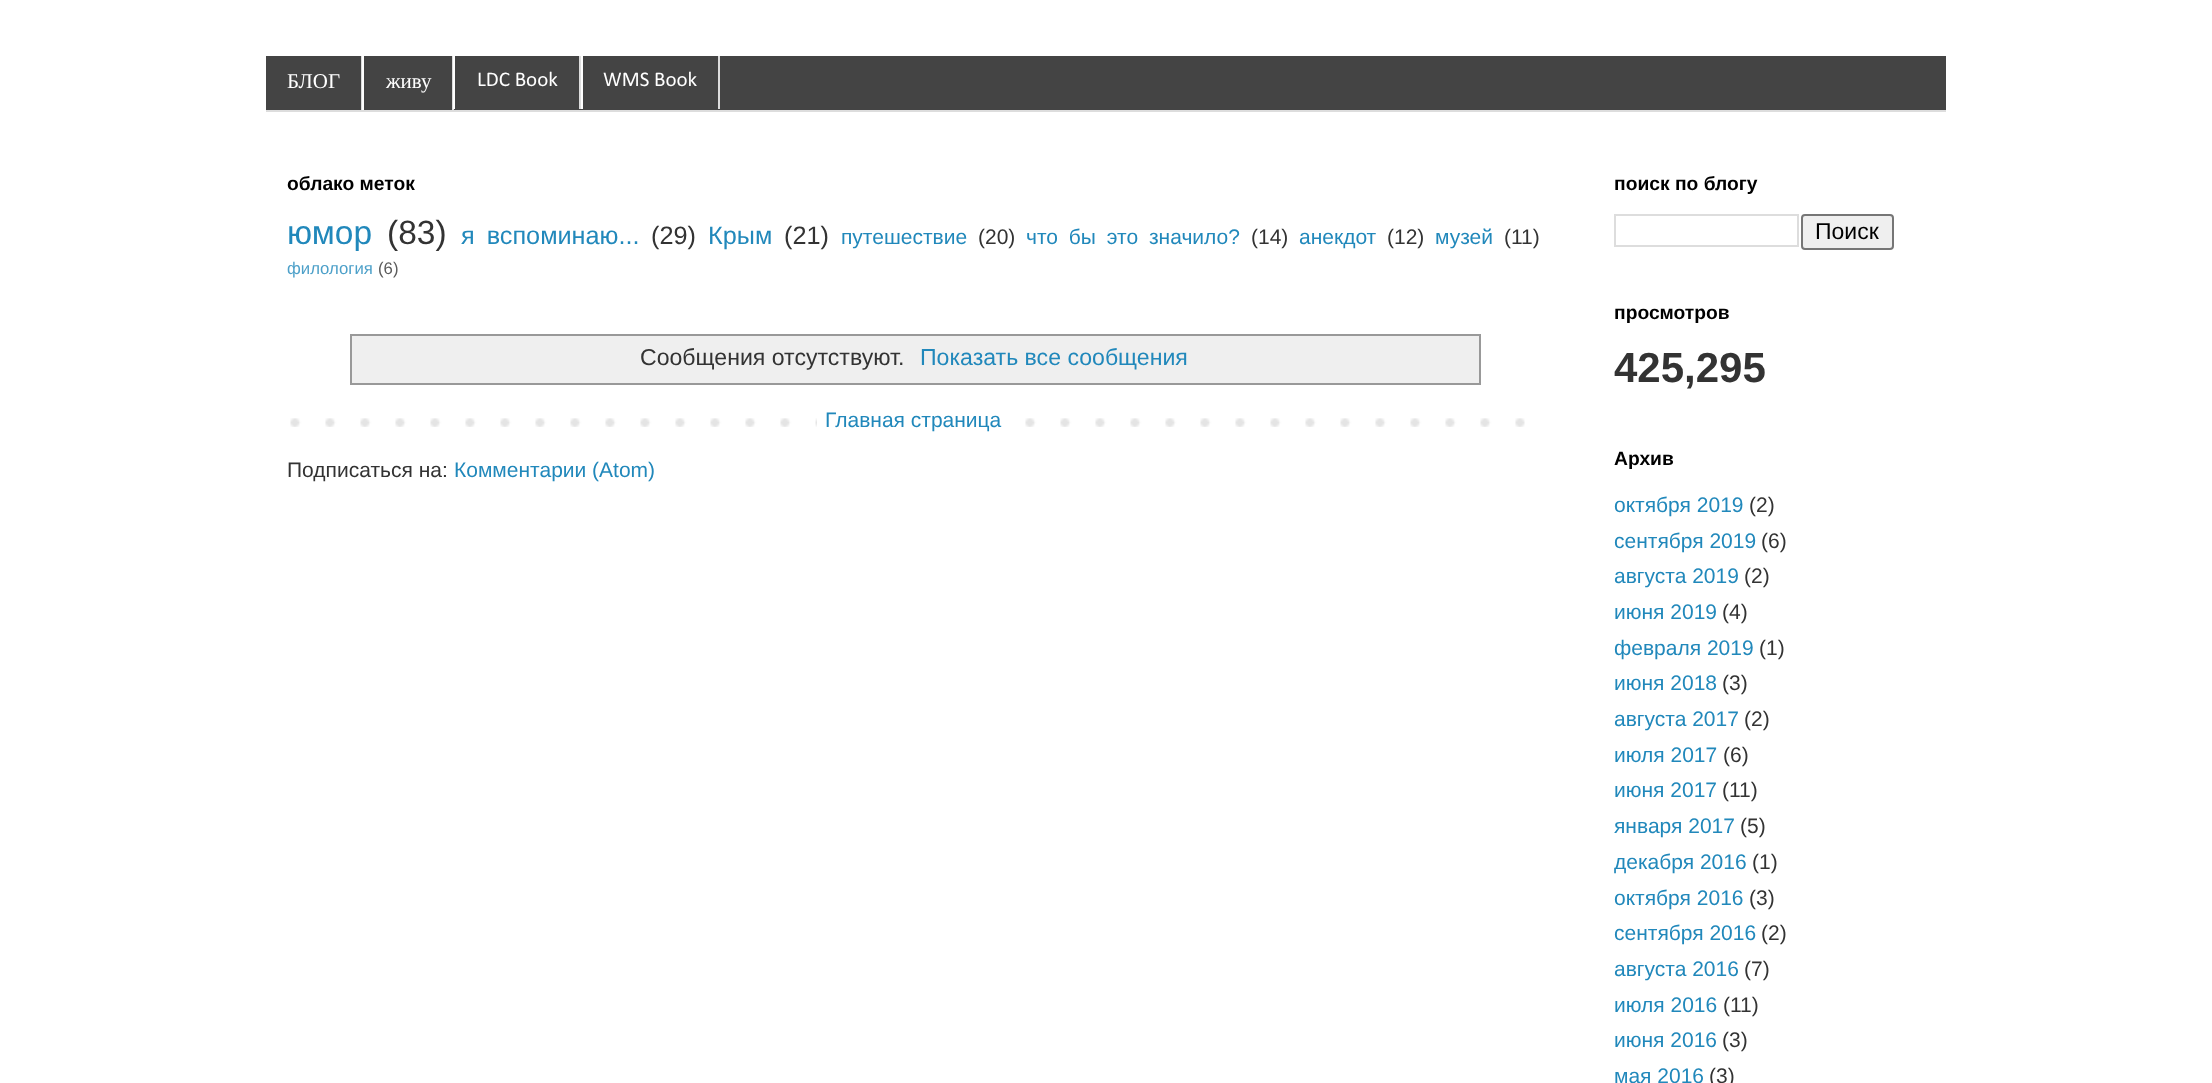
async function draw(canvas) {
	canvas.width = 2212;
	canvas.height = 1083;
	const c = canvas.getContext('2d');
	c.miterLimit = 4;
	c.fontKerning = 'normal';
	async function loadImage(src) {
		const img = new Image();
		img.src = src;
		await img.decode();
		return img;
	}

	c.fillStyle = '#fff';
	c.fillRect(0, 0, 2212, 1083);
	for (const [x, y, w, h, color] of [
		[266, 56, 1680, 54, '#444'],
		[266, 110, 1680, 2, '#ddd'],
		[361, 56, 1, 54, '#ddd'],
	]) {
		c.fillStyle = color;
		c.fillRect(x, y, w, h);
	}
	c.font = '21px Liberation Serif';
	c.fillStyle = '#fff';
	c.fillText('БЛОГ', 287, 88);
	c.fillStyle = '#ddd';
	c.fillRect(452, 56, 2, 54);
	c.fillStyle = '#fff';
	c.fillRect(362, 56, 2, 54);
	c.fillText('живу', 386, 88);
	c.fillStyle = '#ddd';
	c.fillRect(579, 56, 2, 53);
	c.fillStyle = '#fff';
	c.fillRect(453, 56, 2, 53);
	c.font = '21px Calibri';
	c.fillText('LDC Book', 477, 86);
	c.fillStyle = '#ddd';
	c.fillRect(718, 56, 2, 53);
	c.fillStyle = '#fff';
	c.fillRect(581, 56, 2, 53);
	c.fillText('WMS Book', 603, 86);
	c.font = 'bold 19.25px Liberation Sans';
	c.fillStyle = '#000';
	c.fillText('облако меток', 287, 190);
	c.font = '33.5px Liberation Sans';
	c.fillStyle = '#2188bb';
	c.fillText('юмор', 287, 244);
	c.fillStyle = '#333';
	c.fillText('(83)', 387, 244);
	c.wordSpacing = '5px';
	c.font = '25.25px Liberation Sans';
	c.fillStyle = '#2188bb';
	c.fillText('я вспоминаю...', 461, 244);
	c.wordSpacing = '0px';
	c.fillStyle = '#333';
	c.fillText('(29)', 651, 244);
	c.fillStyle = '#2188bb';
	c.fillText('Крым', 708, 244);
	c.fillStyle = '#333';
	c.fillText('(21)', 784, 244);
	c.font = '21px Liberation Sans';
	c.fillStyle = '#2188bb';
	c.fillText('путешествие', 841, 244);
	c.fillStyle = '#333';
	c.fillText('(20)', 978, 244);
	c.wordSpacing = '5px';
	c.fillStyle = '#2188bb';
	c.fillText('что бы это значило?', 1026, 244);
	c.wordSpacing = '0px';
	c.fillStyle = '#333';
	c.fillText('(14)', 1251, 244);
	c.fillStyle = '#2188bb';
	c.fillText('анекдот', 1299, 244);
	c.fillStyle = '#333';
	c.fillText('(12)', 1387, 244);
	c.fillStyle = '#2188bb';
	c.fillText('музей', 1435, 244);
	c.fillStyle = '#333';
	c.fillText('(11)', 1504, 244);
	c.font = '16.75px Liberation Sans';
	c.fillStyle = '#4da0c9';
	c.fillText('филология', 287, 274);
	c.fillStyle = '#5c5c5c';
	c.fillText('(6)', 378, 274);
	c.strokeStyle = '#999';
	c.lineWidth = 2;
	c.strokeRect(351, 335, 1129, 49);
	c.fillStyle = '#efefef';
	c.fillRect(352, 336, 1127, 47);
	c.font = '23.1px Liberation Sans';
	c.fillStyle = '#333';
	c.fillText('Сообщения отсутствуют.', 640, 365);
	c.fillStyle = '#2188bb';
	c.fillText('Показать все сообщения', 920, 365);
	c.drawImage(await loadImage('img1.png'), 290, 418, 1235, 9);
	c.fillStyle = '#fff';
	c.fillRect(817, 418, 184, 9);
	c.font = '21px Liberation Sans';
	c.fillStyle = '#2188bb';
	c.fillText('Главная страница', 825, 427);
	c.fillStyle = '#333';
	c.fillText('Подписаться на:', 287, 477);
	c.fillStyle = '#2188bb';
	c.fillText('Комментарии (Atom)', 454, 477);
	c.font = 'bold 19.25px Liberation Sans';
	c.fillStyle = '#000';
	c.fillText('поиск по блогу', 1614, 190);
	c.strokeStyle = '#ddd';
	c.strokeRect(1615, 215, 183, 31);
	c.fillStyle = '#efefef';
	c.beginPath();
	c.roundRect(1802, 215, 91, 34, 3);
	c.fill();
	c.strokeStyle = '#767676';
	c.stroke();
	c.font = '23px Liberation Sans';
	c.fillStyle = '#000';
	c.fillText('Поиск', 1815, 239);
	c.font = 'bold 19.25px Liberation Sans';
	c.fillText('просмотров', 1614, 319);
	c.font = 'bold 42px Liberation Sans';
	c.fillStyle = '#333';
	c.fillText('425,295', 1614, 382);
	c.font = 'bold 19.25px Liberation Sans';
	c.fillStyle = '#000';
	c.fillText('Архив', 1614, 465);
	c.font = '21px Liberation Sans';
	c.fillStyle = '#2188bb';
	c.fillText('октября 2019', 1614, 512);
	c.fillStyle = '#333';
	c.fillText('(2)', 1749, 512);
	c.fillStyle = '#2188bb';
	c.fillText('сентября 2019', 1614, 548);
	c.fillStyle = '#333';
	c.fillText('(6)', 1761, 548);
	c.fillStyle = '#2188bb';
	c.fillText('августа 2019', 1614, 583);
	c.fillStyle = '#333';
	c.fillText('(2)', 1744, 583);
	c.fillStyle = '#2188bb';
	c.fillText('июня 2019', 1614, 619);
	c.fillStyle = '#333';
	c.fillText('(4)', 1722, 619);
	c.fillStyle = '#2188bb';
	c.fillText('февраля 2019', 1614, 655);
	c.fillStyle = '#333';
	c.fillText('(1)', 1759, 655);
	c.fillStyle = '#2188bb';
	c.fillText('июня 2018', 1614, 690);
	c.fillStyle = '#333';
	c.fillText('(3)', 1722, 690);
	c.fillStyle = '#2188bb';
	c.fillText('августа 2017', 1614, 726);
	c.fillStyle = '#333';
	c.fillText('(2)', 1744, 726);
	c.fillStyle = '#2188bb';
	c.fillText('июля 2017', 1614, 762);
	c.fillStyle = '#333';
	c.fillText('(6)', 1723, 762);
	c.fillStyle = '#2188bb';
	c.fillText('июня 2017', 1614, 797);
	c.fillStyle = '#333';
	c.fillText('(11)', 1722, 797);
	c.fillStyle = '#2188bb';
	c.fillText('января 2017', 1614, 833);
	c.fillStyle = '#333';
	c.fillText('(5)', 1740, 833);
	c.fillStyle = '#2188bb';
	c.fillText('декабря 2016', 1614, 869);
	c.fillStyle = '#333';
	c.fillText('(1)', 1752, 869);
	c.fillStyle = '#2188bb';
	c.fillText('октября 2016', 1614, 905);
	c.fillStyle = '#333';
	c.fillText('(3)', 1749, 905);
	c.fillStyle = '#2188bb';
	c.fillText('сентября 2016', 1614, 940);
	c.fillStyle = '#333';
	c.fillText('(2)', 1761, 940);
	c.fillStyle = '#2188bb';
	c.fillText('августа 2016', 1614, 976);
	c.fillStyle = '#333';
	c.fillText('(7)', 1744, 976);
	c.fillStyle = '#2188bb';
	c.fillText('июля 2016', 1614, 1012);
	c.fillStyle = '#333';
	c.fillText('(11)', 1723, 1012);
	c.fillStyle = '#2188bb';
	c.fillText('июня 2016', 1614, 1047);
	c.fillStyle = '#333';
	c.fillText('(3)', 1722, 1047);
	c.fillStyle = '#2188bb';
	c.fillText('мая 2016', 1614, 1083);
	c.fillStyle = '#333';
	c.fillText('(3)', 1709, 1083);
}

draw(document.querySelector('canvas'));
